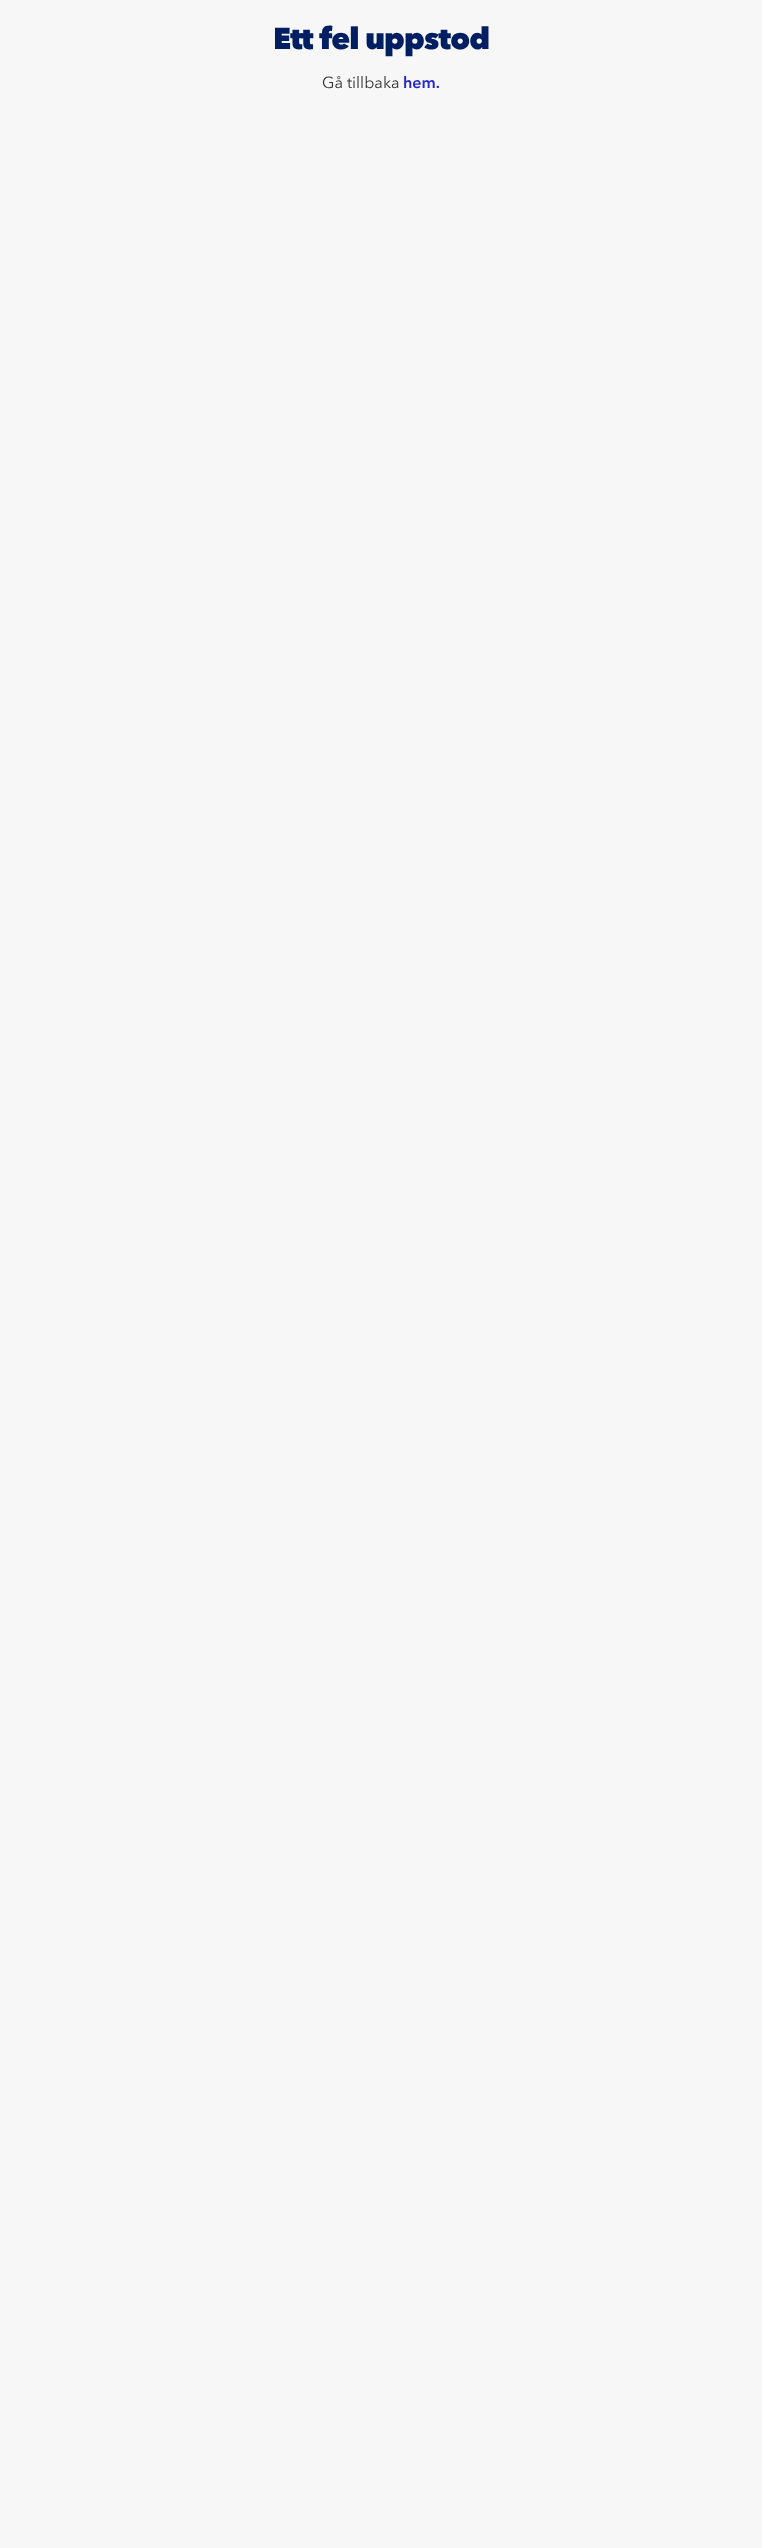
async function draw(canvas) {
	canvas.width = 777;
	canvas.height = 2548;
	const c = canvas.getContext('2d');
	c.miterLimit = 4;
	c.fontKerning = 'normal';

	c.fillStyle = '#fff';
	c.fillRect(0, 0, 777, 2548);
	c.fillStyle = '#f7f7f7';
	c.fillRect(0, 0, 762, 2548);
	c.letterSpacing = '-0.9px';
	c.font = '900 30px Avenir Next';
	c.fillStyle = '#001e62';
	c.fillText('Ett fel uppstod', 273, 49);
	c.letterSpacing = '0px';
	c.font = '16px Avenir Next';
	c.fillStyle = '#333';
	c.fillText('Gå tillbaka', 322, 88);
	c.font = 'bold 16px Avenir Next';
	c.fillStyle = '#2426cc';
	c.fillText('hem.', 403, 88);
}

draw(document.querySelector('canvas'));
